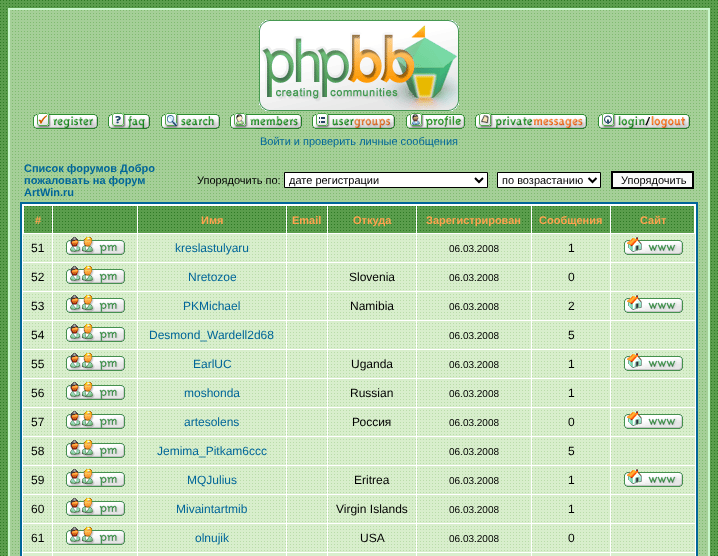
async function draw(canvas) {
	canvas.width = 718;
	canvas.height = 556;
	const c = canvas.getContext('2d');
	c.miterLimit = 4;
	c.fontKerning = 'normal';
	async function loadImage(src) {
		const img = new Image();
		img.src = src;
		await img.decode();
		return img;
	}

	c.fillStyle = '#fff';
	c.fillRect(0, 0, 718, 556);
	c.drawImage(await loadImage('img1.png'), 0, 0, 718, 556);
	c.drawImage(await loadImage('img2.png'), 10, 10, 698, 546);
	c.strokeStyle = '#c9f7cb';
	c.lineWidth = 2;
	c.strokeRect(9, 9, 700, 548);
	c.drawImage(await loadImage('img3.png'), 259, 20, 200, 91);
	c.drawImage(await loadImage('img4.png'), 33, 113, 65, 16);
	c.drawImage(await loadImage('img5.png'), 108, 113, 42, 16);
	c.drawImage(await loadImage('img6.png'), 161, 113, 59, 16);
	c.drawImage(await loadImage('img7.png'), 230, 113, 72, 16);
	c.drawImage(await loadImage('img8.png'), 312, 113, 83, 16);
	c.drawImage(await loadImage('img9.png'), 406, 113, 59, 16);
	c.drawImage(await loadImage('img10.png'), 475, 113, 112, 16);
	c.drawImage(await loadImage('img11.png'), 598, 113, 92, 16);
	c.font = '11px Liberation Sans';
	c.fillStyle = '#069';
	c.fillText('Войти и проверить личные сообщения', 260, 145);
	c.font = 'bold 11px Liberation Sans';
	for (const [text, x, y] of [
		['Список форумов Добро', 24, 172],
		['пожаловать на форум', 24, 184],
		['ArtWin.ru', 24, 196],
	]) {
		c.fillText(text, x, y);
	}
	c.font = '11px Liberation Sans';
	c.fillStyle = '#000';
	c.fillText('Упорядочить по:', 197, 184);
	c.fillStyle = '#fff';
	c.beginPath();
	c.rect(284.5, 172.5, 203, 15);
	c.fill();
	c.strokeStyle = '#000';
	c.lineWidth = 1;
	c.stroke();
	c.beginPath();
	c.moveTo(475, 178);
	c.lineTo(479, 182);
	c.lineTo(483, 178);
	c.lineWidth = 2;
	c.stroke();
	c.fillStyle = '#000';
	c.fillText('дате регистрации', 289, 184);
	c.fillStyle = '#fff';
	c.beginPath();
	c.rect(497.5, 172.5, 103, 15);
	c.fill();
	c.lineWidth = 1;
	c.stroke();
	c.beginPath();
	c.moveTo(588.5, 178);
	c.lineTo(592.5, 182);
	c.lineTo(596.5, 178);
	c.lineWidth = 2;
	c.stroke();
	c.fillStyle = '#000';
	c.fillText('по возрастанию', 502, 184);
	c.fillStyle = '#fafafa';
	c.beginPath();
	c.rect(612, 172, 81, 16);
	c.fill();
	c.stroke();
	c.fillStyle = '#000';
	c.fillText('Упорядочить', 621, 184);
	c.fillStyle = '#fff';
	c.beginPath();
	c.rect(21, 203, 676, 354);
	c.fill();
	c.strokeStyle = '#069';
	c.stroke();
	c.drawImage(await loadImage('img12.png'), 24, 206, 28, 27);
	c.font = 'bold 11px Liberation Sans';
	c.fillStyle = '#ffa34f';
	c.fillText('#', 35, 224);
	c.drawImage(await loadImage('img13.png'), 53, 206, 84, 27);
	c.drawImage(await loadImage('img14.png'), 138, 206, 148, 27);
	c.fillText('Имя', 201, 224);
	c.drawImage(await loadImage('img15.png'), 287, 206, 40, 27);
	c.fillText('Email', 292, 224);
	c.drawImage(await loadImage('img16.png'), 328, 206, 88, 27);
	c.fillText('Откуда', 353, 224);
	c.drawImage(await loadImage('img17.png'), 417, 206, 114, 27);
	c.fillText('Зарегистрирован', 426, 224);
	c.drawImage(await loadImage('img18.png'), 532, 206, 78, 27);
	c.fillText('Сообщения', 539, 224);
	c.drawImage(await loadImage('img19.png'), 611, 206, 83, 27);
	c.fillText('Сайт', 640, 224);
	c.drawImage(await loadImage('img20.png'), 23, 234, 29, 28);
	c.font = '12px Liberation Sans';
	c.fillStyle = '#000';
	c.fillText('51', 31, 252);
	c.drawImage(await loadImage('img21.png'), 53, 234, 84, 28);
	c.drawImage(await loadImage('img22.png'), 66, 237, 59, 18);
	c.drawImage(await loadImage('img23.png'), 138, 234, 148, 28);
	c.fillStyle = '#069';
	c.fillText('kreslastulyaru', 175, 252);
	c.drawImage(await loadImage('img24.png'), 287, 234, 40, 28);
	c.drawImage(await loadImage('img25.png'), 328, 234, 88, 28);
	c.drawImage(await loadImage('img26.png'), 417, 234, 114, 28);
	c.font = '10px Liberation Sans';
	c.fillStyle = '#000';
	c.fillText('06.03.2008', 449, 252);
	c.drawImage(await loadImage('img27.png'), 532, 234, 78, 28);
	c.font = '12px Liberation Sans';
	c.fillText('1', 568, 252);
	c.drawImage(await loadImage('img21.png'), 611, 234, 84, 28);
	c.drawImage(await loadImage('img28.png'), 624, 237, 59, 18);
	c.drawImage(await loadImage('img20.png'), 23, 263, 29, 28);
	c.fillText('52', 31, 281);
	c.drawImage(await loadImage('img21.png'), 53, 263, 84, 28);
	c.drawImage(await loadImage('img22.png'), 66, 266, 59, 18);
	c.drawImage(await loadImage('img23.png'), 138, 263, 148, 28);
	c.fillStyle = '#069';
	c.fillText('Nretozoe', 188, 281);
	c.drawImage(await loadImage('img24.png'), 287, 263, 40, 28);
	c.drawImage(await loadImage('img25.png'), 328, 263, 88, 28);
	c.fillStyle = '#000';
	c.fillText('Slovenia', 349, 281);
	c.drawImage(await loadImage('img26.png'), 417, 263, 114, 28);
	c.font = '10px Liberation Sans';
	c.fillText('06.03.2008', 449, 281);
	c.drawImage(await loadImage('img27.png'), 532, 263, 78, 28);
	c.font = '12px Liberation Sans';
	c.fillText('0', 568, 281);
	c.drawImage(await loadImage('img21.png'), 611, 263, 84, 28);
	c.drawImage(await loadImage('img20.png'), 23, 292, 29, 28);
	c.fillText('53', 31, 310);
	c.drawImage(await loadImage('img21.png'), 53, 292, 84, 28);
	c.drawImage(await loadImage('img22.png'), 66, 295, 59, 18);
	c.drawImage(await loadImage('img23.png'), 138, 292, 148, 28);
	c.fillStyle = '#069';
	c.fillText('PKMichael', 183, 310);
	c.drawImage(await loadImage('img24.png'), 287, 292, 40, 28);
	c.drawImage(await loadImage('img25.png'), 328, 292, 88, 28);
	c.fillStyle = '#000';
	c.fillText('Namibia', 350, 310);
	c.drawImage(await loadImage('img26.png'), 417, 292, 114, 28);
	c.font = '10px Liberation Sans';
	c.fillText('06.03.2008', 449, 310);
	c.drawImage(await loadImage('img27.png'), 532, 292, 78, 28);
	c.font = '12px Liberation Sans';
	c.fillText('2', 568, 310);
	c.drawImage(await loadImage('img21.png'), 611, 292, 84, 28);
	c.drawImage(await loadImage('img28.png'), 624, 295, 59, 18);
	c.drawImage(await loadImage('img20.png'), 23, 321, 29, 28);
	c.fillText('54', 31, 339);
	c.drawImage(await loadImage('img21.png'), 53, 321, 84, 28);
	c.drawImage(await loadImage('img22.png'), 66, 324, 59, 18);
	c.drawImage(await loadImage('img23.png'), 138, 321, 148, 28);
	c.fillStyle = '#069';
	c.fillText('Desmond_Wardell2d68', 149, 339);
	c.drawImage(await loadImage('img24.png'), 287, 321, 40, 28);
	c.drawImage(await loadImage('img25.png'), 328, 321, 88, 28);
	c.drawImage(await loadImage('img26.png'), 417, 321, 114, 28);
	c.font = '10px Liberation Sans';
	c.fillStyle = '#000';
	c.fillText('06.03.2008', 449, 339);
	c.drawImage(await loadImage('img27.png'), 532, 321, 78, 28);
	c.font = '12px Liberation Sans';
	c.fillText('5', 568, 339);
	c.drawImage(await loadImage('img21.png'), 611, 321, 84, 28);
	c.drawImage(await loadImage('img20.png'), 23, 350, 29, 28);
	c.fillText('55', 31, 368);
	c.drawImage(await loadImage('img21.png'), 53, 350, 84, 28);
	c.drawImage(await loadImage('img22.png'), 66, 353, 59, 18);
	c.drawImage(await loadImage('img23.png'), 138, 350, 148, 28);
	c.fillStyle = '#069';
	c.fillText('EarlUC', 193, 368);
	c.drawImage(await loadImage('img24.png'), 287, 350, 40, 28);
	c.drawImage(await loadImage('img25.png'), 328, 350, 88, 28);
	c.fillStyle = '#000';
	c.fillText('Uganda', 351, 368);
	c.drawImage(await loadImage('img26.png'), 417, 350, 114, 28);
	c.font = '10px Liberation Sans';
	c.fillText('06.03.2008', 449, 368);
	c.drawImage(await loadImage('img27.png'), 532, 350, 78, 28);
	c.font = '12px Liberation Sans';
	c.fillText('1', 568, 368);
	c.drawImage(await loadImage('img21.png'), 611, 350, 84, 28);
	c.drawImage(await loadImage('img28.png'), 624, 353, 59, 18);
	c.drawImage(await loadImage('img20.png'), 23, 379, 29, 28);
	c.fillText('56', 31, 397);
	c.drawImage(await loadImage('img21.png'), 53, 379, 84, 28);
	c.drawImage(await loadImage('img22.png'), 66, 382, 59, 18);
	c.drawImage(await loadImage('img23.png'), 138, 379, 148, 28);
	c.fillStyle = '#069';
	c.fillText('moshonda', 184, 397);
	c.drawImage(await loadImage('img24.png'), 287, 379, 40, 28);
	c.drawImage(await loadImage('img25.png'), 328, 379, 88, 28);
	c.fillStyle = '#000';
	c.fillText('Russian', 350, 397);
	c.drawImage(await loadImage('img26.png'), 417, 379, 114, 28);
	c.font = '10px Liberation Sans';
	c.fillText('06.03.2008', 449, 397);
	c.drawImage(await loadImage('img27.png'), 532, 379, 78, 28);
	c.font = '12px Liberation Sans';
	c.fillText('1', 568, 397);
	c.drawImage(await loadImage('img21.png'), 611, 379, 84, 28);
	c.drawImage(await loadImage('img20.png'), 23, 408, 29, 28);
	c.fillText('57', 31, 426);
	c.drawImage(await loadImage('img21.png'), 53, 408, 84, 28);
	c.drawImage(await loadImage('img22.png'), 66, 411, 59, 18);
	c.drawImage(await loadImage('img23.png'), 138, 408, 148, 28);
	c.fillStyle = '#069';
	c.fillText('artesolens', 184, 426);
	c.drawImage(await loadImage('img24.png'), 287, 408, 40, 28);
	c.drawImage(await loadImage('img25.png'), 328, 408, 88, 28);
	c.fillStyle = '#000';
	c.fillText('Россия', 352, 426);
	c.drawImage(await loadImage('img26.png'), 417, 408, 114, 28);
	c.font = '10px Liberation Sans';
	c.fillText('06.03.2008', 449, 426);
	c.drawImage(await loadImage('img27.png'), 532, 408, 78, 28);
	c.font = '12px Liberation Sans';
	c.fillText('0', 568, 426);
	c.drawImage(await loadImage('img21.png'), 611, 408, 84, 28);
	c.drawImage(await loadImage('img28.png'), 624, 411, 59, 18);
	c.drawImage(await loadImage('img20.png'), 23, 437, 29, 28);
	c.fillText('58', 31, 455);
	c.drawImage(await loadImage('img21.png'), 53, 437, 84, 28);
	c.drawImage(await loadImage('img22.png'), 66, 440, 59, 18);
	c.drawImage(await loadImage('img23.png'), 138, 437, 148, 28);
	c.fillStyle = '#069';
	c.fillText('Jemima_Pitkam6ccc', 157, 455);
	c.drawImage(await loadImage('img24.png'), 287, 437, 40, 28);
	c.drawImage(await loadImage('img25.png'), 328, 437, 88, 28);
	c.drawImage(await loadImage('img26.png'), 417, 437, 114, 28);
	c.font = '10px Liberation Sans';
	c.fillStyle = '#000';
	c.fillText('06.03.2008', 449, 455);
	c.drawImage(await loadImage('img27.png'), 532, 437, 78, 28);
	c.font = '12px Liberation Sans';
	c.fillText('5', 568, 455);
	c.drawImage(await loadImage('img21.png'), 611, 437, 84, 28);
	c.drawImage(await loadImage('img20.png'), 23, 466, 29, 28);
	c.fillText('59', 31, 484);
	c.drawImage(await loadImage('img21.png'), 53, 466, 84, 28);
	c.drawImage(await loadImage('img22.png'), 66, 469, 59, 18);
	c.drawImage(await loadImage('img23.png'), 138, 466, 148, 28);
	c.fillStyle = '#069';
	c.fillText('MQJulius', 187, 484);
	c.drawImage(await loadImage('img24.png'), 287, 466, 40, 28);
	c.drawImage(await loadImage('img25.png'), 328, 466, 88, 28);
	c.fillStyle = '#000';
	c.fillText('Eritrea', 354, 484);
	c.drawImage(await loadImage('img26.png'), 417, 466, 114, 28);
	c.font = '10px Liberation Sans';
	c.fillText('06.03.2008', 449, 484);
	c.drawImage(await loadImage('img27.png'), 532, 466, 78, 28);
	c.font = '12px Liberation Sans';
	c.fillText('1', 568, 484);
	c.drawImage(await loadImage('img21.png'), 611, 466, 84, 28);
	c.drawImage(await loadImage('img28.png'), 624, 469, 59, 18);
	c.drawImage(await loadImage('img20.png'), 23, 495, 29, 28);
	c.fillText('60', 31, 513);
	c.drawImage(await loadImage('img21.png'), 53, 495, 84, 28);
	c.drawImage(await loadImage('img22.png'), 66, 498, 59, 18);
	c.drawImage(await loadImage('img23.png'), 138, 495, 148, 28);
	c.fillStyle = '#069';
	c.fillText('Mivaintartmib', 176, 513);
	c.drawImage(await loadImage('img24.png'), 287, 495, 40, 28);
	c.drawImage(await loadImage('img25.png'), 328, 495, 88, 28);
	c.fillStyle = '#000';
	c.fillText('Virgin Islands', 336, 513);
	c.drawImage(await loadImage('img26.png'), 417, 495, 114, 28);
	c.font = '10px Liberation Sans';
	c.fillText('06.03.2008', 449, 513);
	c.drawImage(await loadImage('img27.png'), 532, 495, 78, 28);
	c.font = '12px Liberation Sans';
	c.fillText('1', 568, 513);
	c.drawImage(await loadImage('img21.png'), 611, 495, 84, 28);
	c.drawImage(await loadImage('img20.png'), 23, 524, 29, 28);
	c.fillText('61', 31, 542);
	c.drawImage(await loadImage('img21.png'), 53, 524, 84, 28);
	c.drawImage(await loadImage('img22.png'), 66, 527, 59, 18);
	c.drawImage(await loadImage('img23.png'), 138, 524, 148, 28);
	c.fillStyle = '#069';
	c.fillText('olnujik', 195, 542);
	c.drawImage(await loadImage('img24.png'), 287, 524, 40, 28);
	c.drawImage(await loadImage('img25.png'), 328, 524, 88, 28);
	c.fillStyle = '#000';
	c.fillText('USA', 360, 542);
	c.drawImage(await loadImage('img26.png'), 417, 524, 114, 28);
	c.font = '10px Liberation Sans';
	c.fillText('06.03.2008', 449, 542);
	c.drawImage(await loadImage('img27.png'), 532, 524, 78, 28);
	c.font = '12px Liberation Sans';
	c.fillText('0', 568, 542);
	c.drawImage(await loadImage('img21.png'), 611, 524, 84, 28);
	for (const [x, y, w, h, color] of [
		[23, 553, 29, 3, '#d8eecc'],
		[53, 553, 84, 3, '#d8eecc'],
		[138, 553, 148, 3, '#d8eecc'],
		[287, 553, 40, 3, '#d8eecc'],
		[328, 553, 88, 3, '#d8eecc'],
		[417, 553, 114, 3, '#d8eecc'],
		[532, 553, 78, 3, '#d8eecc'],
		[611, 553, 84, 3, '#d8eecc'],
	]) {
		c.fillStyle = color;
		c.fillRect(x, y, w, h);
	}
}

draw(document.querySelector('canvas'));
